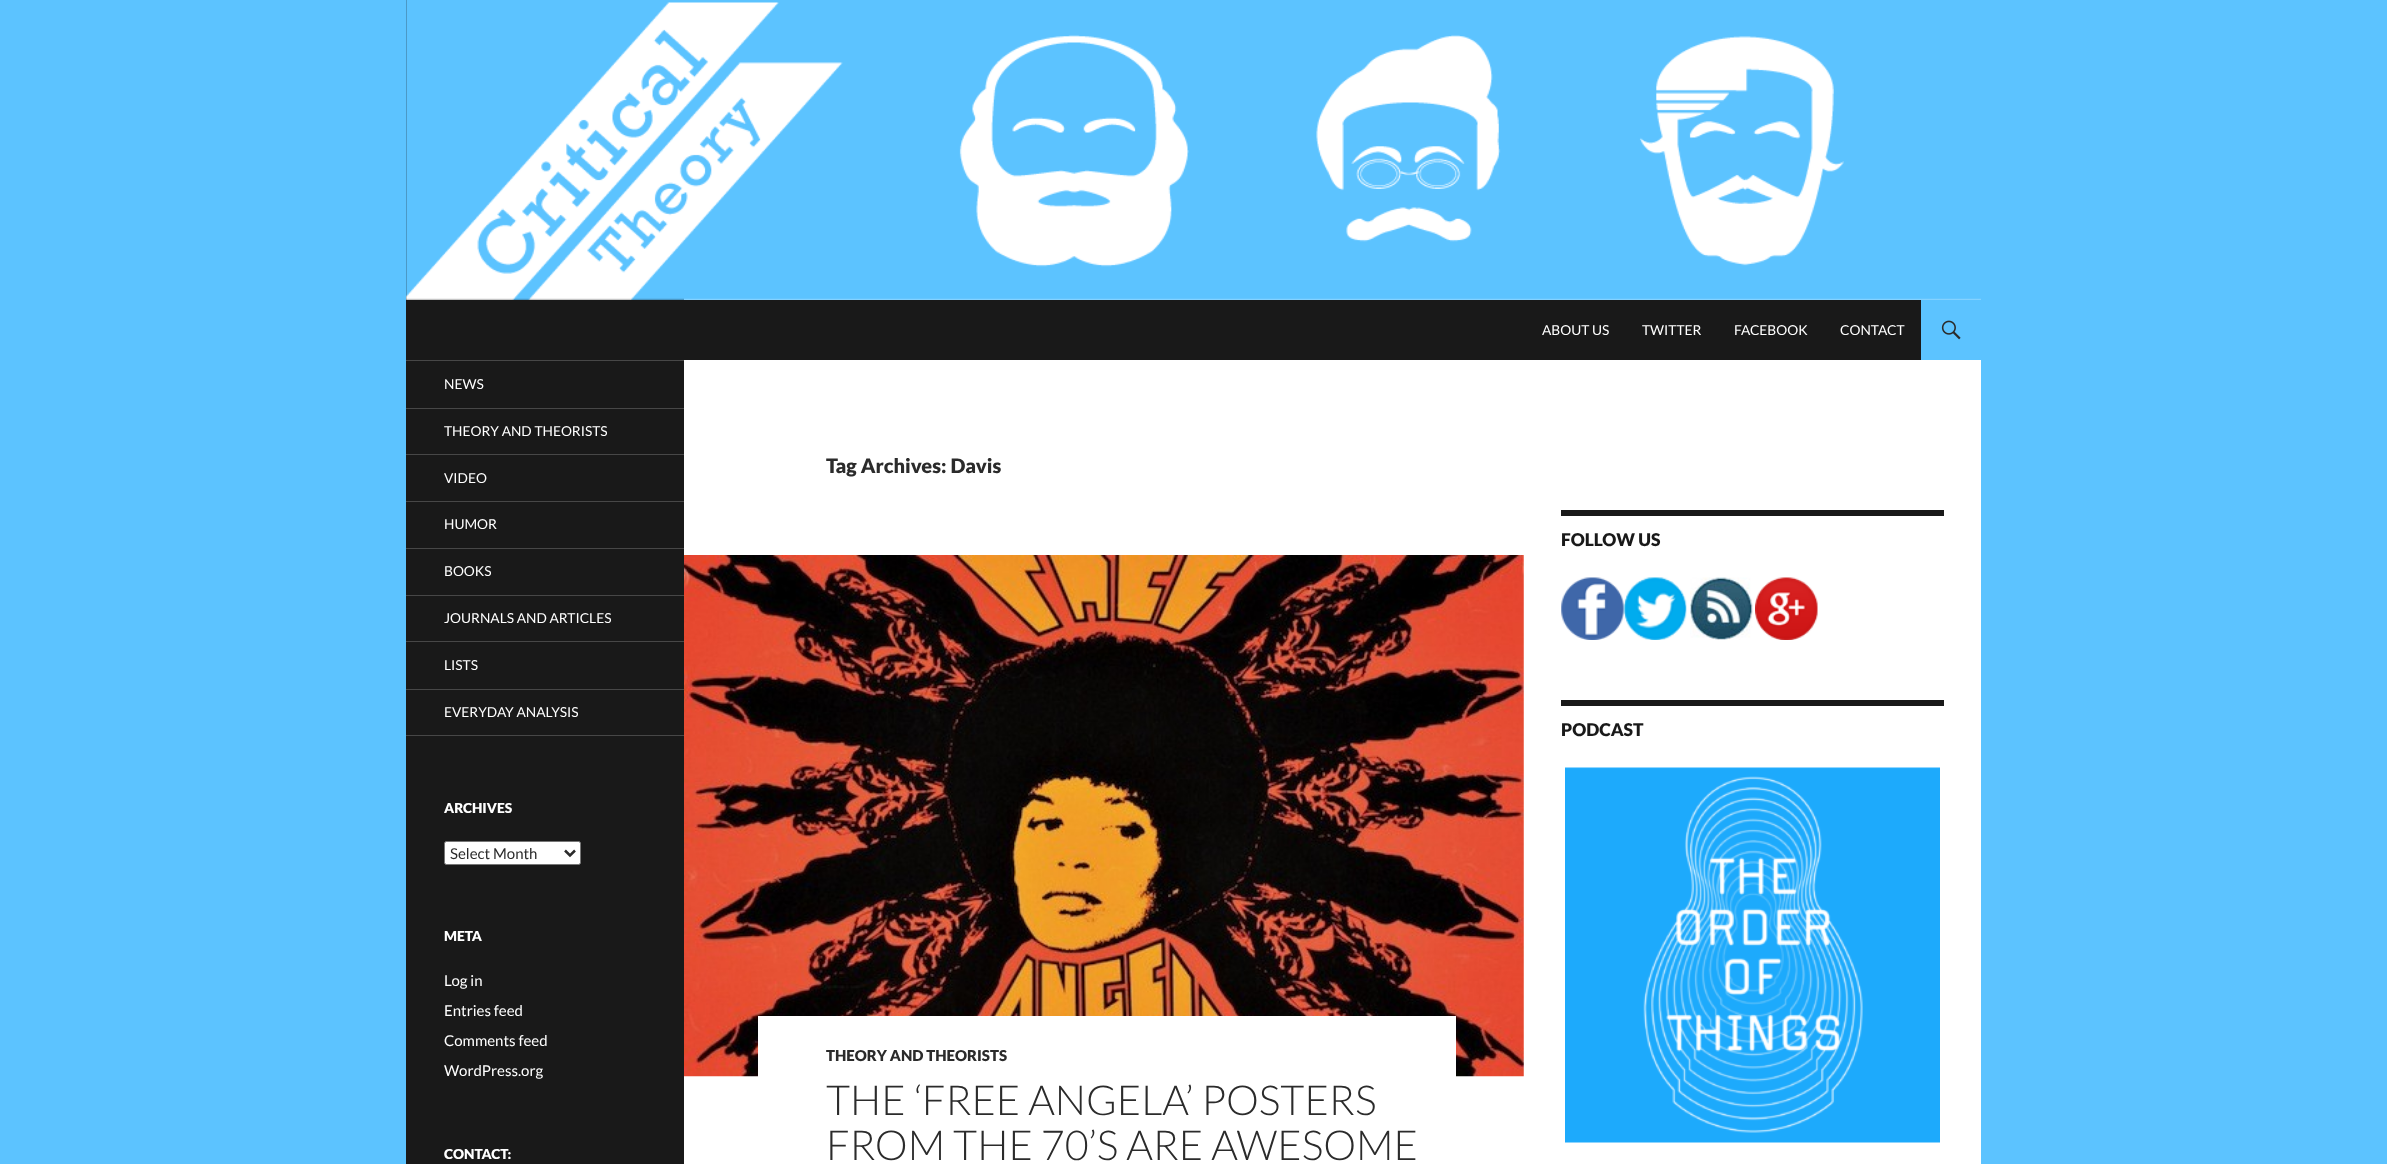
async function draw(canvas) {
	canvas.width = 2387;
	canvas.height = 1164;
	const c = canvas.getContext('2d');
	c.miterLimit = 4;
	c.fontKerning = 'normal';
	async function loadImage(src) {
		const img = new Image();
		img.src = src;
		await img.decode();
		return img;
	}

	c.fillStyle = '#5cc3ff';
	c.fillRect(0, 0, 2387, 1164);
	c.fillStyle = '#fff';
	c.fillRect(684, 298, 1297, 866);
	c.fillStyle = '#191919';
	c.fillRect(406, 0, 278, 1164);
	c.drawImage(await loadImage('img1.png'), 406, 0, 1575, 300);
	c.fillRect(684, 300, 1237, 60);
	c.font = '13.75px Lato';
	c.fillStyle = '#fff';
	for (const [text, x, y] of [
		['ABOUT US', 1542, 335],
		['TWITTER', 1642, 335],
		['FACEBOOK', 1734, 335],
		['CONTACT', 1840, 335],
	]) {
		c.fillText(text, x, y);
	}
	c.fillStyle = '#5cc3ff';
	c.fillRect(1921, 300, 60, 60);
	c.drawImage(await loadImage('img2.png'), 1941, 320, 20, 20);
	c.fillStyle = '#474747';
	c.fillRect(406, 735, 278, 1);
	c.fillRect(406, 360, 278, 1);
	c.fillStyle = '#fff';
	c.fillText('NEWS', 444, 389);
	c.fillStyle = '#474747';
	c.fillRect(406, 408, 278, 1);
	c.fillStyle = '#fff';
	c.fillText('THEORY AND THEORISTS', 444, 436);
	c.fillStyle = '#474747';
	c.fillRect(406, 454, 278, 1);
	c.fillStyle = '#fff';
	c.fillText('VIDEO', 444, 483);
	c.fillStyle = '#474747';
	c.fillRect(406, 501, 278, 1);
	c.fillStyle = '#fff';
	c.fillText('HUMOR', 444, 529);
	c.fillStyle = '#474747';
	c.fillRect(406, 548, 278, 1);
	c.fillStyle = '#fff';
	c.fillText('BOOKS', 444, 576);
	c.fillStyle = '#474747';
	c.fillRect(406, 595, 278, 1);
	c.fillStyle = '#fff';
	c.fillText('JOURNALS AND ARTICLES', 444, 623);
	c.fillStyle = '#474747';
	c.fillRect(406, 641, 278, 1);
	c.fillStyle = '#fff';
	c.fillText('LISTS', 444, 670);
	c.fillStyle = '#474747';
	c.fillRect(406, 689, 278, 1);
	c.fillStyle = '#fff';
	c.fillText('EVERYDAY ANALYSIS', 444, 717);
	c.font = '900 13.75px Lato';
	c.fillText('ARCHIVES', 444, 813);
	c.beginPath();
	c.roundRect(444.5, 841.5, 136, 23, 2);
	c.fill();
	c.strokeStyle = '#767676';
	c.stroke();
	c.beginPath();
	c.moveTo(565, 850.5);
	c.lineTo(570, 855.5);
	c.lineTo(575, 850.5);
	c.strokeStyle = '#2b2b2b';
	c.lineWidth = 2.5;
	c.stroke();
	c.font = '15px Lato';
	c.fillStyle = '#2b2b2b';
	c.fillText('Select Month', 450, 859);
	c.font = '900 13.75px Lato';
	c.fillStyle = '#fff';
	c.fillText('META', 444, 941);
	c.font = '15px Lato';
	for (const [text, x, y] of [
		['Log in', 444, 986],
		['Entries feed', 444, 1016],
		['Comments feed', 444, 1046],
		['WordPress.org', 444, 1076],
	]) {
		c.fillText(text, x, y);
	}
	c.font = '900 13.75px Lato';
	c.fillText('CONTACT:', 444, 1159);
	c.font = '900 20px Lato';
	c.fillStyle = '#2b2b2b';
	c.fillText('Tag Archives: Davis', 826, 473);
	c.drawImage(await loadImage('img3.png'), 684, 555, 840, 522);
	c.fillStyle = '#fff';
	c.fillRect(758, 1016, 698, 61);
	c.font = '900 15px Lato';
	c.fillStyle = '#2b2b2b';
	c.fillText('THEORY AND THEORISTS', 826, 1061);
	c.font = '300 41.25px Lato';
	c.fillText('THE ‘FREE ANGELA’ POSTERS', 826, 1115);
	c.fillText('FROM THE 70’S ARE AWESOME', 826, 1160);
	c.fillStyle = '#191919';
	c.fillRect(1561, 510, 383, 6);
	c.font = '900 17.5px Lato';
	c.fillText('FOLLOW US', 1561, 546);
	c.drawImage(await loadImage('img4.png'), 1561, 577, 63, 63);
	c.drawImage(await loadImage('img5.png'), 1623, 577, 64, 63);
	c.drawImage(await loadImage('img6.png'), 1690, 577, 63, 63);
	c.drawImage(await loadImage('img7.png'), 1755, 577, 63, 63);
	c.fillRect(1561, 700, 383, 6);
	c.fillText('PODCAST', 1561, 736);
	c.drawImage(await loadImage('img8.png'), 1565, 767, 375, 376);
}

draw(document.querySelector('canvas'));
